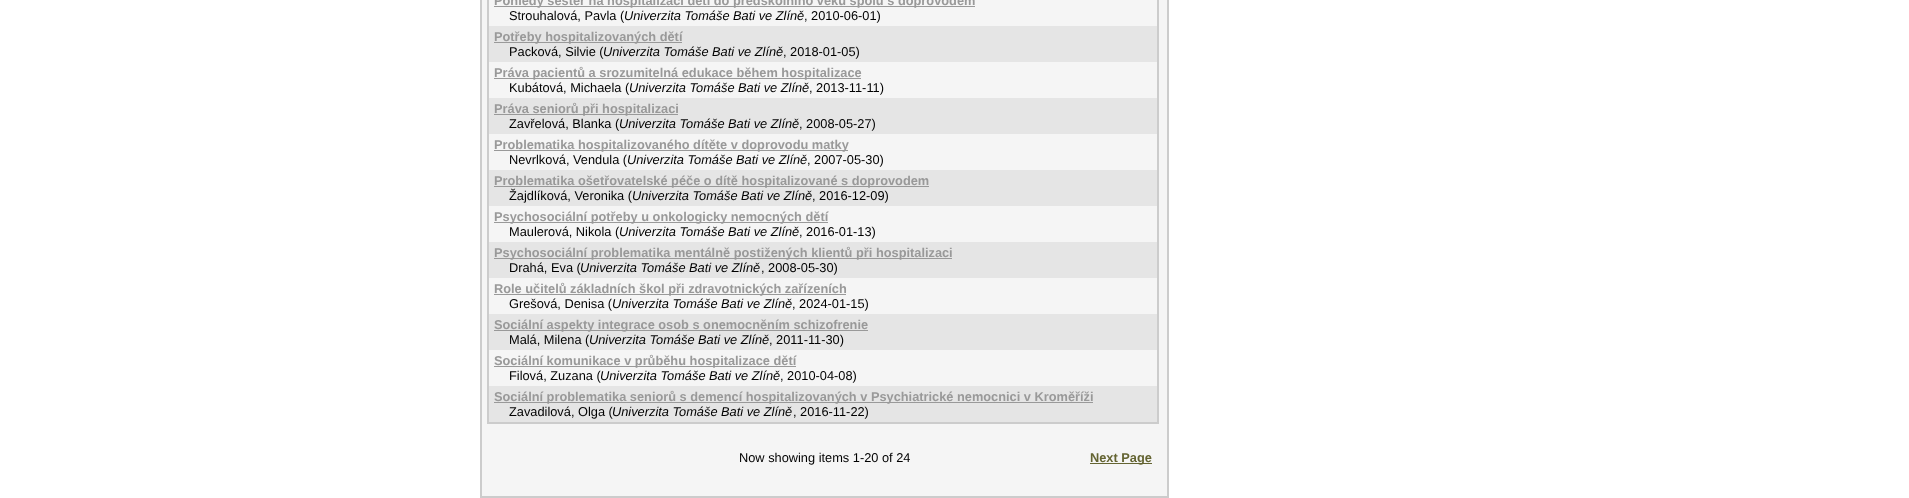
async function draw(canvas) {
	canvas.width = 1909;
	canvas.height = 498;
	const c = canvas.getContext('2d');
	c.miterLimit = 4;
	c.fontKerning = 'normal';

	c.fillStyle = '#fff';
	c.fillRect(0, 0, 1909, 498);
	c.fillStyle = '#f5f5f5';
	c.beginPath();
	c.rect(481, -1, 687, 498);
	c.fill();
	c.strokeStyle = '#ccc';
	c.lineWidth = 2;
	c.stroke();
	c.strokeRect(488, -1, 670, 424);
	c.fillStyle = '#999';
	c.fillRect(494, 6, 481, 1);
	c.font = 'bold 12.8px Liberation Sans';
	c.fillText('Pohledy sester na hospitalizaci dětí do předškolního věku spolu s doprovodem', 494, 5);
	c.font = '12.8px Liberation Sans';
	c.fillStyle = '#000';
	c.fillText('Strouhalová, Pavla (', 509, 20);
	c.font = 'italic 12.8px Liberation Sans';
	c.fillText('Univerzita Tomáše Bati ve Zlíně', 624, 20);
	c.font = '12.8px Liberation Sans';
	c.fillText(', 2010-06-01)', 804, 20);
	c.fillStyle = '#e5e5e5';
	c.fillRect(489, 26, 668, 36);
	c.fillStyle = '#999';
	c.fillRect(494, 42, 188, 1);
	c.font = 'bold 12.8px Liberation Sans';
	c.fillText('Potřeby hospitalizovaných dětí', 494, 41);
	c.font = '12.8px Liberation Sans';
	c.fillStyle = '#000';
	c.fillText('Packová, Silvie (', 509, 56);
	c.font = 'italic 12.8px Liberation Sans';
	c.fillText('Univerzita Tomáše Bati ve Zlíně', 603, 56);
	c.font = '12.8px Liberation Sans';
	c.fillText(', 2018-01-05)', 783, 56);
	c.fillStyle = '#999';
	c.fillRect(494, 78, 367, 1);
	c.font = 'bold 12.8px Liberation Sans';
	c.fillText('Práva pacientů a srozumitelná edukace během hospitalizace', 494, 77);
	c.font = '12.8px Liberation Sans';
	c.fillStyle = '#000';
	c.fillText('Kubátová, Michaela (', 509, 92);
	c.font = 'italic 12.8px Liberation Sans';
	c.fillText('Univerzita Tomáše Bati ve Zlíně', 629, 92);
	c.font = '12.8px Liberation Sans';
	c.fillText(', 2013-11-11)', 809, 92);
	c.fillStyle = '#e5e5e5';
	c.fillRect(489, 98, 668, 36);
	c.fillStyle = '#999';
	c.fillRect(494, 114, 184, 1);
	c.font = 'bold 12.8px Liberation Sans';
	c.fillText('Práva seniorů při hospitalizaci', 494, 113);
	c.font = '12.8px Liberation Sans';
	c.fillStyle = '#000';
	c.fillText('Zavřelová, Blanka (', 509, 128);
	c.font = 'italic 12.8px Liberation Sans';
	c.fillText('Univerzita Tomáše Bati ve Zlíně', 619, 128);
	c.font = '12.8px Liberation Sans';
	c.fillText(', 2008-05-27)', 799, 128);
	c.fillStyle = '#999';
	c.fillRect(494, 150, 354, 1);
	c.font = 'bold 12.8px Liberation Sans';
	c.fillText('Problematika hospitalizovaného dítěte v doprovodu matky', 494, 149);
	c.font = '12.8px Liberation Sans';
	c.fillStyle = '#000';
	c.fillText('Nevrlková, Vendula (', 509, 164);
	c.font = 'italic 12.8px Liberation Sans';
	c.fillText('Univerzita Tomáše Bati ve Zlíně', 627, 164);
	c.font = '12.8px Liberation Sans';
	c.fillText(', 2007-05-30)', 807, 164);
	c.fillStyle = '#e5e5e5';
	c.fillRect(489, 170, 668, 36);
	c.fillStyle = '#999';
	c.fillRect(494, 186, 435, 1);
	c.font = 'bold 12.8px Liberation Sans';
	c.fillText('Problematika ošetřovatelské péče o dítě hospitalizované s doprovodem', 494, 185);
	c.font = '12.8px Liberation Sans';
	c.fillStyle = '#000';
	c.fillText('Žajdlíková, Veronika (', 509, 200);
	c.font = 'italic 12.8px Liberation Sans';
	c.fillText('Univerzita Tomáše Bati ve Zlíně', 632, 200);
	c.font = '12.8px Liberation Sans';
	c.fillText(', 2016-12-09)', 812, 200);
	c.fillStyle = '#999';
	c.fillRect(494, 222, 334, 1);
	c.font = 'bold 12.8px Liberation Sans';
	c.fillText('Psychosociální potřeby u onkologicky nemocných dětí', 494, 221);
	c.font = '12.8px Liberation Sans';
	c.fillStyle = '#000';
	c.fillText('Maulerová, Nikola (', 509, 236);
	c.font = 'italic 12.8px Liberation Sans';
	c.fillText('Univerzita Tomáše Bati ve Zlíně', 619, 236);
	c.font = '12.8px Liberation Sans';
	c.fillText(', 2016-01-13)', 799, 236);
	c.fillStyle = '#e5e5e5';
	c.fillRect(489, 242, 668, 36);
	c.fillStyle = '#999';
	c.fillRect(494, 258, 458, 1);
	c.font = 'bold 12.8px Liberation Sans';
	c.fillText('Psychosociální problematika mentálně postižených klientů při hospitalizaci', 494, 257);
	c.font = '12.8px Liberation Sans';
	c.fillStyle = '#000';
	c.fillText('Drahá, Eva (', 509, 272);
	c.font = 'italic 12.8px Liberation Sans';
	c.fillText('Univerzita Tomáše Bati ve Zlíně', 580, 272);
	c.font = '12.8px Liberation Sans';
	c.fillText(', 2008-05-30)', 761, 272);
	c.fillStyle = '#999';
	c.fillRect(494, 294, 352, 1);
	c.font = 'bold 12.8px Liberation Sans';
	c.fillText('Role učitelů základních škol při zdravotnických zařízeních', 494, 293);
	c.font = '12.8px Liberation Sans';
	c.fillStyle = '#000';
	c.fillText('Grešová, Denisa (', 509, 308);
	c.font = 'italic 12.8px Liberation Sans';
	c.fillText('Univerzita Tomáše Bati ve Zlíně', 612, 308);
	c.font = '12.8px Liberation Sans';
	c.fillText(', 2024-01-15)', 792, 308);
	c.fillStyle = '#e5e5e5';
	c.fillRect(489, 314, 668, 36);
	c.fillStyle = '#999';
	c.fillRect(494, 330, 374, 1);
	c.font = 'bold 12.8px Liberation Sans';
	c.fillText('Sociální aspekty integrace osob s onemocněním schizofrenie', 494, 329);
	c.font = '12.8px Liberation Sans';
	c.fillStyle = '#000';
	c.fillText('Malá, Milena (', 509, 344);
	c.font = 'italic 12.8px Liberation Sans';
	c.fillText('Univerzita Tomáše Bati ve Zlíně', 589, 344);
	c.font = '12.8px Liberation Sans';
	c.fillText(', 2011-11-30)', 769, 344);
	c.fillStyle = '#999';
	c.fillRect(494, 366, 302, 1);
	c.font = 'bold 12.8px Liberation Sans';
	c.fillText('Sociální komunikace v průběhu hospitalizace dětí', 494, 365);
	c.font = '12.8px Liberation Sans';
	c.fillStyle = '#000';
	c.fillText('Filová, Zuzana (', 509, 380);
	c.font = 'italic 12.8px Liberation Sans';
	c.fillText('Univerzita Tomáše Bati ve Zlíně', 600, 380);
	c.font = '12.8px Liberation Sans';
	c.fillText(', 2010-04-08)', 780, 380);
	c.fillStyle = '#e5e5e5';
	c.fillRect(489, 386, 668, 36);
	c.fillStyle = '#999';
	c.fillRect(494, 402, 599, 1);
	c.font = 'bold 12.8px Liberation Sans';
	c.fillText('Sociální problematika seniorů s demencí hospitalizovaných v Psychiatrické nemocnici v Kroměříži', 494, 401);
	c.font = '12.8px Liberation Sans';
	c.fillStyle = '#000';
	c.fillText('Zavadilová, Olga (', 509, 416);
	c.font = 'italic 12.8px Liberation Sans';
	c.fillText('Univerzita Tomáše Bati ve Zlíně', 612, 416);
	c.font = '12.8px Liberation Sans';
	c.fillText(', 2016-11-22)', 793, 416);
	c.fillText('Now showing items 1-20 of 24', 739, 462);
	c.fillStyle = '#646432';
	c.fillRect(1090, 463, 62, 1);
	c.font = 'bold 12.8px Liberation Sans';
	c.fillText('Next Page', 1090, 462);
}

draw(document.querySelector('canvas'));
